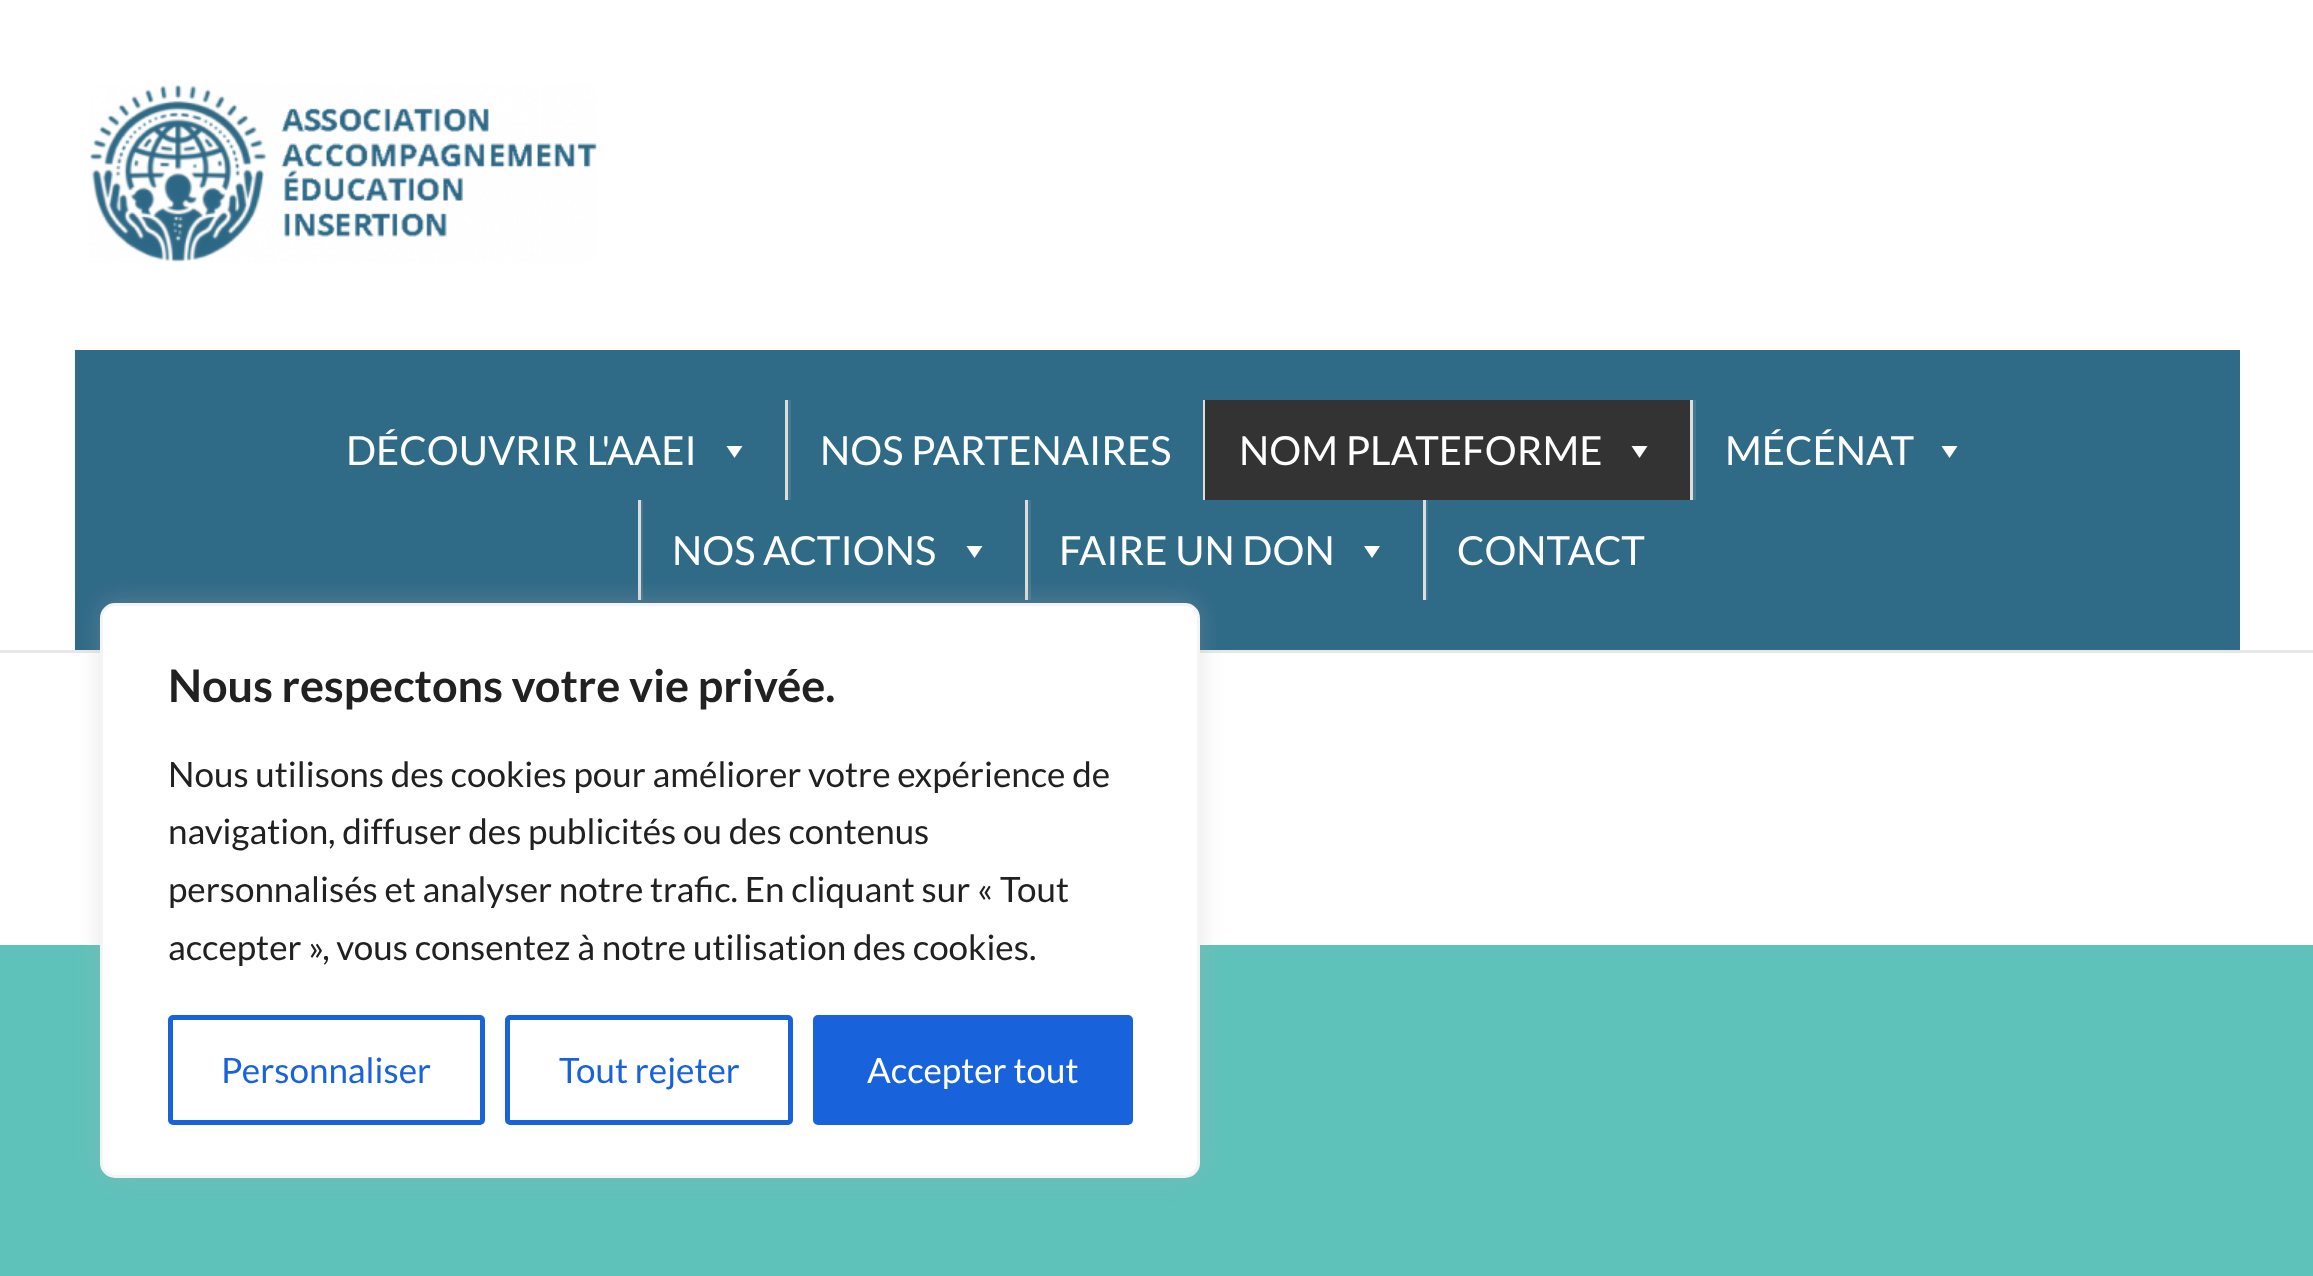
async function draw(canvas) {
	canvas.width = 2313;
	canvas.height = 1276;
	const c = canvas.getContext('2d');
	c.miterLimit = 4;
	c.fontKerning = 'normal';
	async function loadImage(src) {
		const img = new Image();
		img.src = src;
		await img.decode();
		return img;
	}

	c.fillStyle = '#fff';
	c.fillRect(0, 0, 2313, 1276);
	c.fillStyle = '#e7e7e7';
	c.fillRect(0, 650, 2313, 3);
	c.drawImage(await loadImage('img1.png'), 89, 84, 508, 179);
	c.fillStyle = '#2f6a87';
	c.fillRect(75, 350, 2165, 300);
	c.font = '40px Lato';
	c.fillStyle = '#fff';
	c.fillText('DÉCOUVRIR L\'AAEI', 346, 465);
	c.beginPath();
	c.moveTo(742.5, 446);
	c.lineTo(734.5, 458);
	c.lineTo(726.5, 446);
	c.closePath();
	c.fill();
	c.fillStyle = '#447993';
	c.fillRect(788, 400, 3, 100);
	c.fillStyle = '#ddd';
	c.fillRect(785, 400, 3, 100);
	c.fillStyle = '#fff';
	c.fillText('NOS PARTENAIRES', 820, 465);
	c.fillStyle = '#ddd';
	c.fillRect(1203, 400, 2, 100);
	c.fillStyle = '#333';
	c.fillRect(1205, 400, 485, 100);
	c.fillStyle = '#fff';
	c.fillText('NOM PLATEFORME', 1239, 465);
	c.beginPath();
	c.moveTo(1647.5, 446);
	c.lineTo(1639.5, 458);
	c.lineTo(1631.5, 446);
	c.closePath();
	c.fill();
	c.fillStyle = '#447993';
	c.fillRect(1693, 400, 3, 100);
	c.fillStyle = '#ddd';
	c.fillRect(1690, 400, 3, 100);
	c.fillStyle = '#fff';
	c.fillText('MÉCÉNAT', 1725, 465);
	c.beginPath();
	c.moveTo(1957.5, 446);
	c.lineTo(1949.5, 458);
	c.lineTo(1941.5, 446);
	c.closePath();
	c.fill();
	c.fillStyle = '#447993';
	c.fillRect(641, 500, 2, 100);
	c.fillStyle = '#ddd';
	c.fillRect(638, 500, 3, 100);
	c.fillStyle = '#fff';
	c.fillText('NOS ACTIONS', 672, 565);
	c.beginPath();
	c.moveTo(982.5, 546);
	c.lineTo(974.5, 558);
	c.lineTo(966.5, 546);
	c.closePath();
	c.fill();
	c.fillStyle = '#447993';
	c.fillRect(1028, 500, 3, 100);
	c.fillStyle = '#ddd';
	c.fillRect(1025, 500, 3, 100);
	c.fillStyle = '#fff';
	c.fillText('FAIRE UN DON', 1059, 565);
	c.beginPath();
	c.moveTo(1380, 546);
	c.lineTo(1372, 558);
	c.lineTo(1364, 546);
	c.closePath();
	c.fill();
	c.fillStyle = '#447993';
	c.fillRect(1426, 500, 2, 100);
	c.fillStyle = '#ddd';
	c.fillRect(1423, 500, 3, 100);
	c.fillStyle = '#fff';
	c.fillText('CONTACT', 1457, 565);
	c.fillStyle = '#5fc2ba';
	c.fillRect(0, 945, 2313, 331);
	c.fillStyle = '#acabab4d';
	c.filter = 'blur(12.5px)';
	c.beginPath();
	c.roundRect(100, 600, 1100, 575, 15);
	c.fill();
	c.filter = 'none';
	c.fillStyle = '#fff';
	c.beginPath();
	c.roundRect(101.5, 604.5, 1097, 572, 13.5);
	c.fill();
	c.strokeStyle = '#f4f4f4';
	c.lineWidth = 3;
	c.stroke();
	c.font = 'bold 45px Lato';
	c.fillStyle = '#212121';
	c.fillText('Nous respectons votre vie privée.', 168, 702);
	c.font = '35px Lato';
	for (const [text, x, y] of [
		['Nous utilisons des cookies pour améliorer votre expérience de', 168, 787],
		['navigation, diffuser des publicités ou des contenus', 168, 844],
		['personnalisés et analyser notre trafic. En cliquant sur « Tout', 168, 902],
		['accepter », vous consentez à notre utilisation des cookies.', 168, 960],
	]) {
		c.fillText(text, x, y);
	}
	c.beginPath();
	c.roundRect(170.5, 1017.5, 312, 105, 2.5);
	c.strokeStyle = '#1863dc';
	c.lineWidth = 5;
	c.stroke();
	c.fillStyle = '#1863dc';
	c.fillText('Personnaliser', 221, 1083);
	c.beginPath();
	c.roundRect(507.5, 1017.5, 283, 105, 2.5);
	c.stroke();
	c.fillText('Tout rejeter', 559, 1083);
	c.beginPath();
	c.roundRect(815.5, 1017.5, 315, 105, 2.5);
	c.fill();
	c.stroke();
	c.fillStyle = '#fff';
	c.fillText('Accepter tout', 867, 1083);
}

draw(document.querySelector('canvas'));
